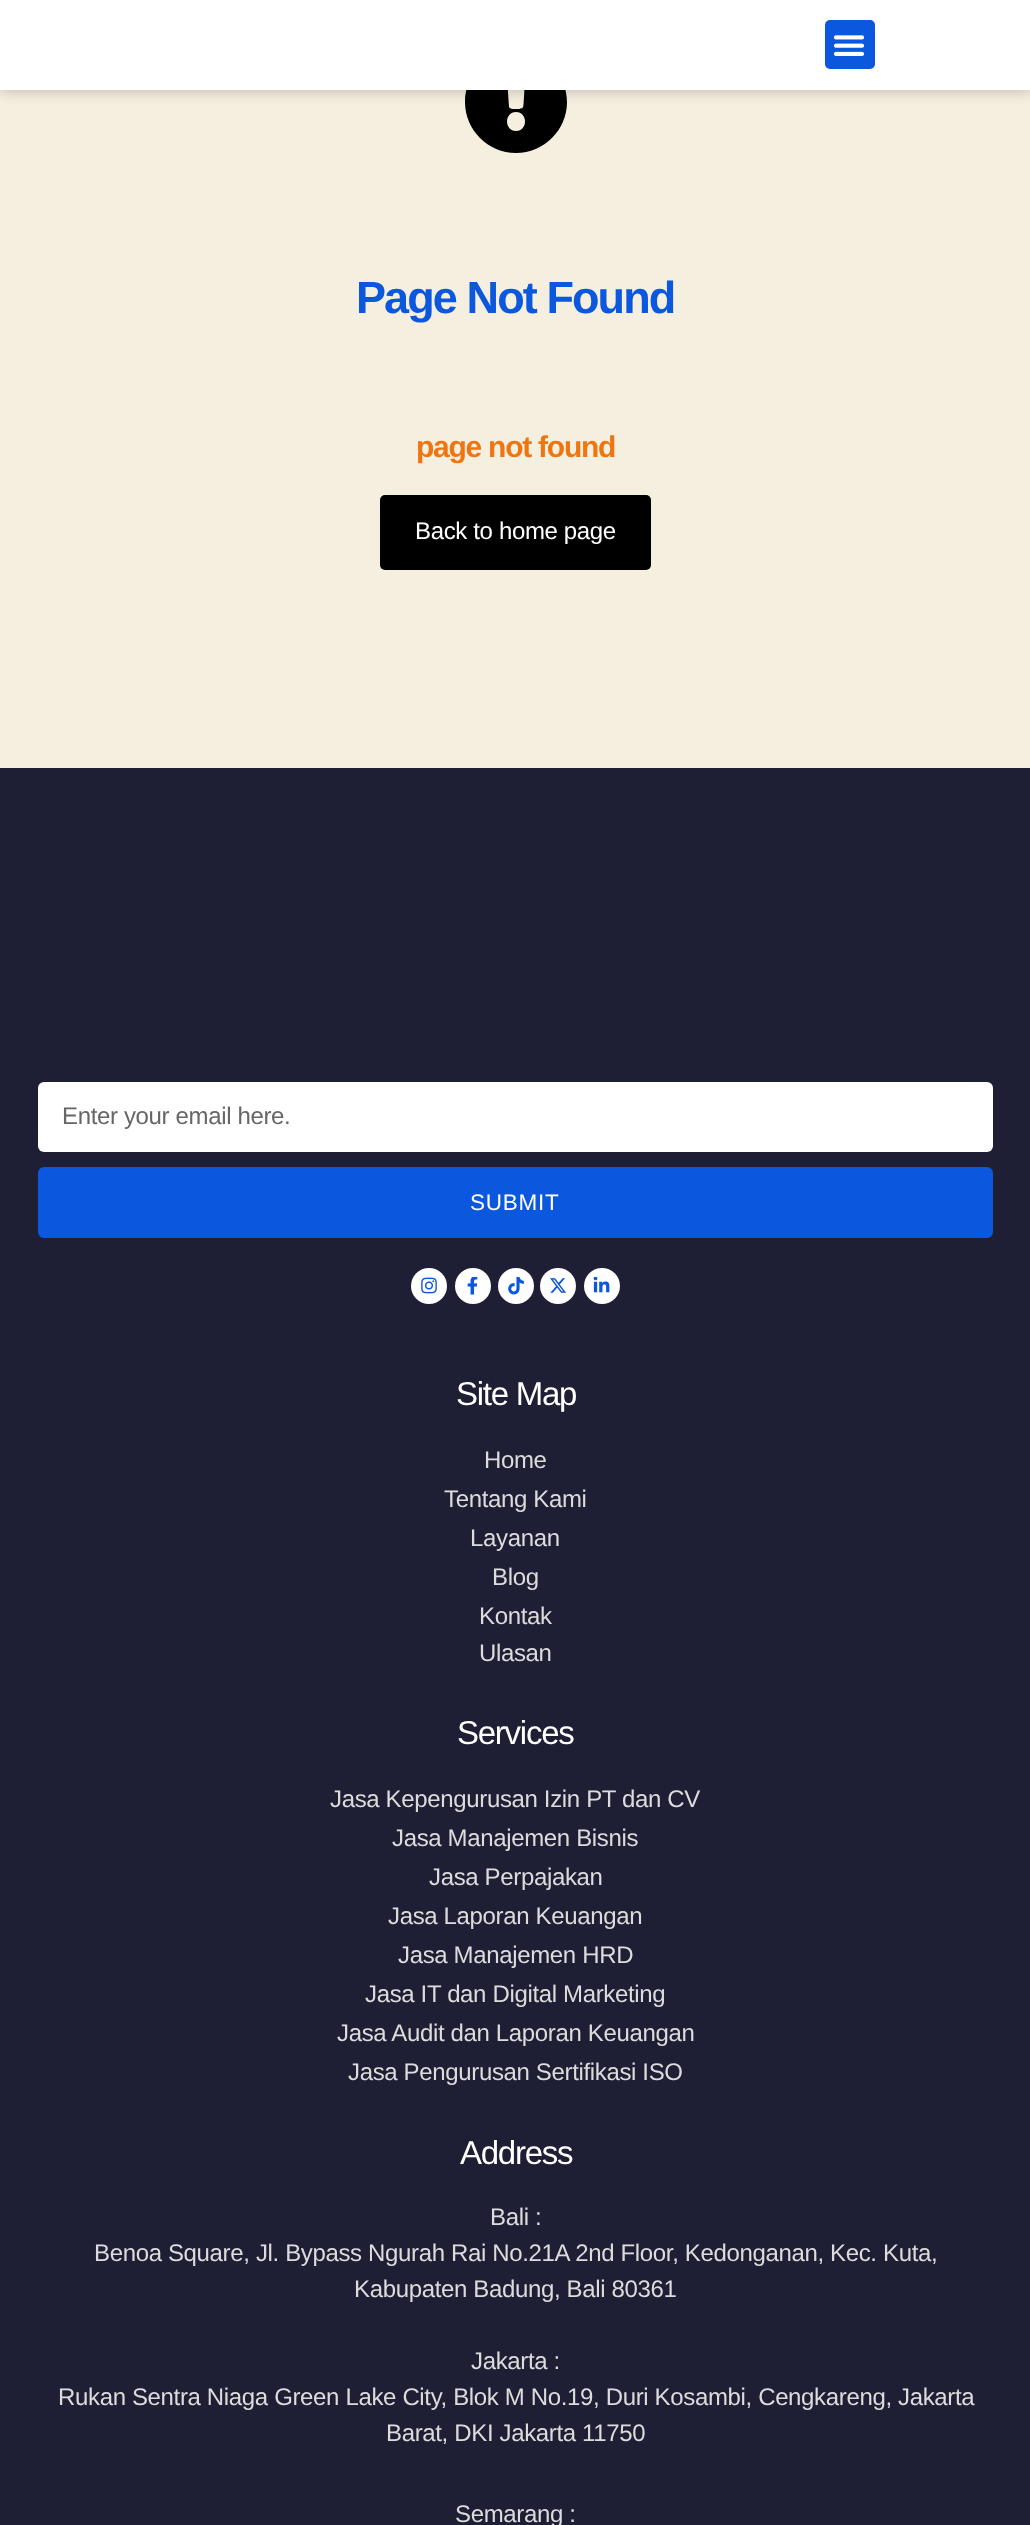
async function draw(canvas) {
	canvas.width = 1030;
	canvas.height = 2525;
	const c = canvas.getContext('2d');
	c.miterLimit = 4;
	c.fontKerning = 'normal';
	async function loadImage(src) {
		const img = new Image();
		img.src = src;
		await img.decode();
		return img;
	}

	c.fillStyle = '#f5efe0';
	c.fillRect(0, 0, 1030, 2525);
	c.fillStyle = '#000';
	c.beginPath();
	c.moveTo(567, 102);
	c.bezierCurveTo(567, 130, 544, 153, 516, 153);
	c.bezierCurveTo(488, 153, 465, 130, 465, 102);
	c.bezierCurveTo(465, 74, 488, 51, 516, 51);
	c.bezierCurveTo(544, 51, 567, 74, 567, 102);
	c.closePath();
	c.moveTo(516, 112);
	c.bezierCurveTo(504, 112, 504, 131, 516, 131);
	c.bezierCurveTo(528, 131, 528, 112, 516, 112);
	c.closePath();
	c.moveTo(507, 78);
	c.lineTo(509, 107);
	c.bezierCurveTo(510, 109, 513, 109, 514, 109);
	c.bezierCurveTo(525, 109, 523, 109, 524, 97);
	c.lineTo(525, 78);
	c.bezierCurveTo(524, 74, 518, 76, 516, 76);
	c.bezierCurveTo(514, 76, 507, 74, 507, 78);
	c.closePath();
	c.fill();
	c.fillStyle = '#00000040';
	c.filter = 'blur(7.5px)';
	c.beginPath();
	c.rect(0, 0, 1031, 90);
	c.fill();
	c.filter = 'none';
	c.fillStyle = '#fff';
	c.fillRect(0, 0, 1030, 90);
	c.fillStyle = '#0b57dd';
	c.beginPath();
	c.roundRect(825, 20, 50, 49, 5);
	c.fill();
	c.drawImage(await loadImage('img1.png'), 833, 35, 32, 21);
	c.letterSpacing = '-1.9px';
	c.font = 'bold 45px Liberation Sans';
	c.fillText('Page Not Found', 356, 313);
	c.letterSpacing = '-1.25px';
	c.font = 'bold 30px Liberation Sans';
	c.fillStyle = '#ef7511';
	c.fillText('page not found', 416, 457);
	c.fillStyle = '#000';
	c.beginPath();
	c.roundRect(380, 495, 271, 75, 5);
	c.fill();
	c.letterSpacing = '-0.35px';
	c.font = '24px Liberation Sans';
	c.fillStyle = '#fff';
	c.fillText('Back to home page', 415, 539);
	c.fillStyle = '#1e1e35';
	c.fillRect(0, 768, 1030, 1757);
	c.fillStyle = '#fff';
	c.beginPath();
	c.roundRect(38, 1082, 955, 70, 6);
	c.fill();
	c.fillStyle = '#666';
	c.fillText('Enter your email here.', 62, 1124);
	c.fillStyle = '#0b57dd';
	c.beginPath();
	c.roundRect(38, 1167, 955, 71, 6);
	c.fill();
	c.letterSpacing = '0.75px';
	c.font = '22.5px Liberation Sans';
	c.fillStyle = '#fff';
	c.fillText('SUBMIT', 470, 1210);
	c.beginPath();
	c.arc(429, 1286, 18, 0, 2 * Math.PI);
	c.fill();
	c.drawImage(await loadImage('img2.png'), 421, 1277, 16, 17);
	c.beginPath();
	c.arc(473, 1286, 18, 0, 2 * Math.PI);
	c.fill();
	c.drawImage(await loadImage('img3.png'), 467, 1277, 11, 18);
	c.beginPath();
	c.arc(516, 1286, 18, 0, 2 * Math.PI);
	c.fill();
	c.drawImage(await loadImage('img4.png'), 508, 1277, 16, 18);
	c.beginPath();
	c.arc(558, 1286, 18, 0, 2 * Math.PI);
	c.fill();
	c.drawImage(await loadImage('img5.png'), 550, 1278, 16, 15);
	c.beginPath();
	c.arc(602, 1286, 18, 0, 2 * Math.PI);
	c.fill();
	c.drawImage(await loadImage('img6.png'), 593, 1277, 17, 16);
	c.letterSpacing = '-1.25px';
	c.font = '33px Liberation Sans';
	c.fillText('Site Map', 456, 1405);
	c.letterSpacing = '-0.35px';
	c.font = '24px Liberation Sans';
	c.fillStyle = '#dcdcdc';
	for (const [text, x, y] of [
		['Home', 484, 1468],
		['Tentang Kami', 444, 1507],
		['Layanan', 470, 1546],
		['Blog', 492, 1585],
		['Kontak', 479, 1624],
		['Ulasan', 479, 1661],
	]) {
		c.fillText(text, x, y);
	}
	c.letterSpacing = '-1.25px';
	c.font = '33px Liberation Sans';
	c.fillStyle = '#fff';
	c.fillText('Services', 457, 1744);
	c.letterSpacing = '-0.35px';
	c.font = '24px Liberation Sans';
	c.fillStyle = '#dcdcdc';
	for (const [text, x, y] of [
		['Jasa Kepengurusan Izin PT dan CV', 330, 1807],
		['Jasa Manajemen Bisnis', 392, 1846],
		['Jasa Perpajakan', 429, 1885],
		['Jasa Laporan Keuangan', 388, 1924],
		['Jasa Manajemen HRD', 398, 1963],
		['Jasa IT dan Digital Marketing', 365, 2002],
		['Jasa Audit dan Laporan Keuangan', 337, 2041],
		['Jasa Pengurusan Sertifikasi ISO', 348, 2080],
	]) {
		c.fillText(text, x, y);
	}
	c.letterSpacing = '-1.25px';
	c.font = '33px Liberation Sans';
	c.fillStyle = '#fff';
	c.fillText('Address', 460, 2164);
	c.letterSpacing = '-0.35px';
	c.font = '24px Liberation Sans';
	c.fillStyle = '#dcdcdc';
	for (const [text, x, y] of [
		['Bali :', 490, 2225],
		['Benoa Square, Jl. Bypass Ngurah Rai No.21A 2nd Floor, Kedonganan, Kec. Kuta,', 94, 2261],
		['Kabupaten Badung, Bali 80361', 354, 2297],
		['Jakarta :', 471, 2369],
		['Rukan Sentra Niaga Green Lake City, Blok M No.19, Duri Kosambi, Cengkareng, Jakarta', 58, 2405],
		['Barat, DKI Jakarta 11750', 386, 2441],
		['Semarang :', 455, 2522],
	]) {
		c.fillText(text, x, y);
	}
}

draw(document.querySelector('canvas'));
